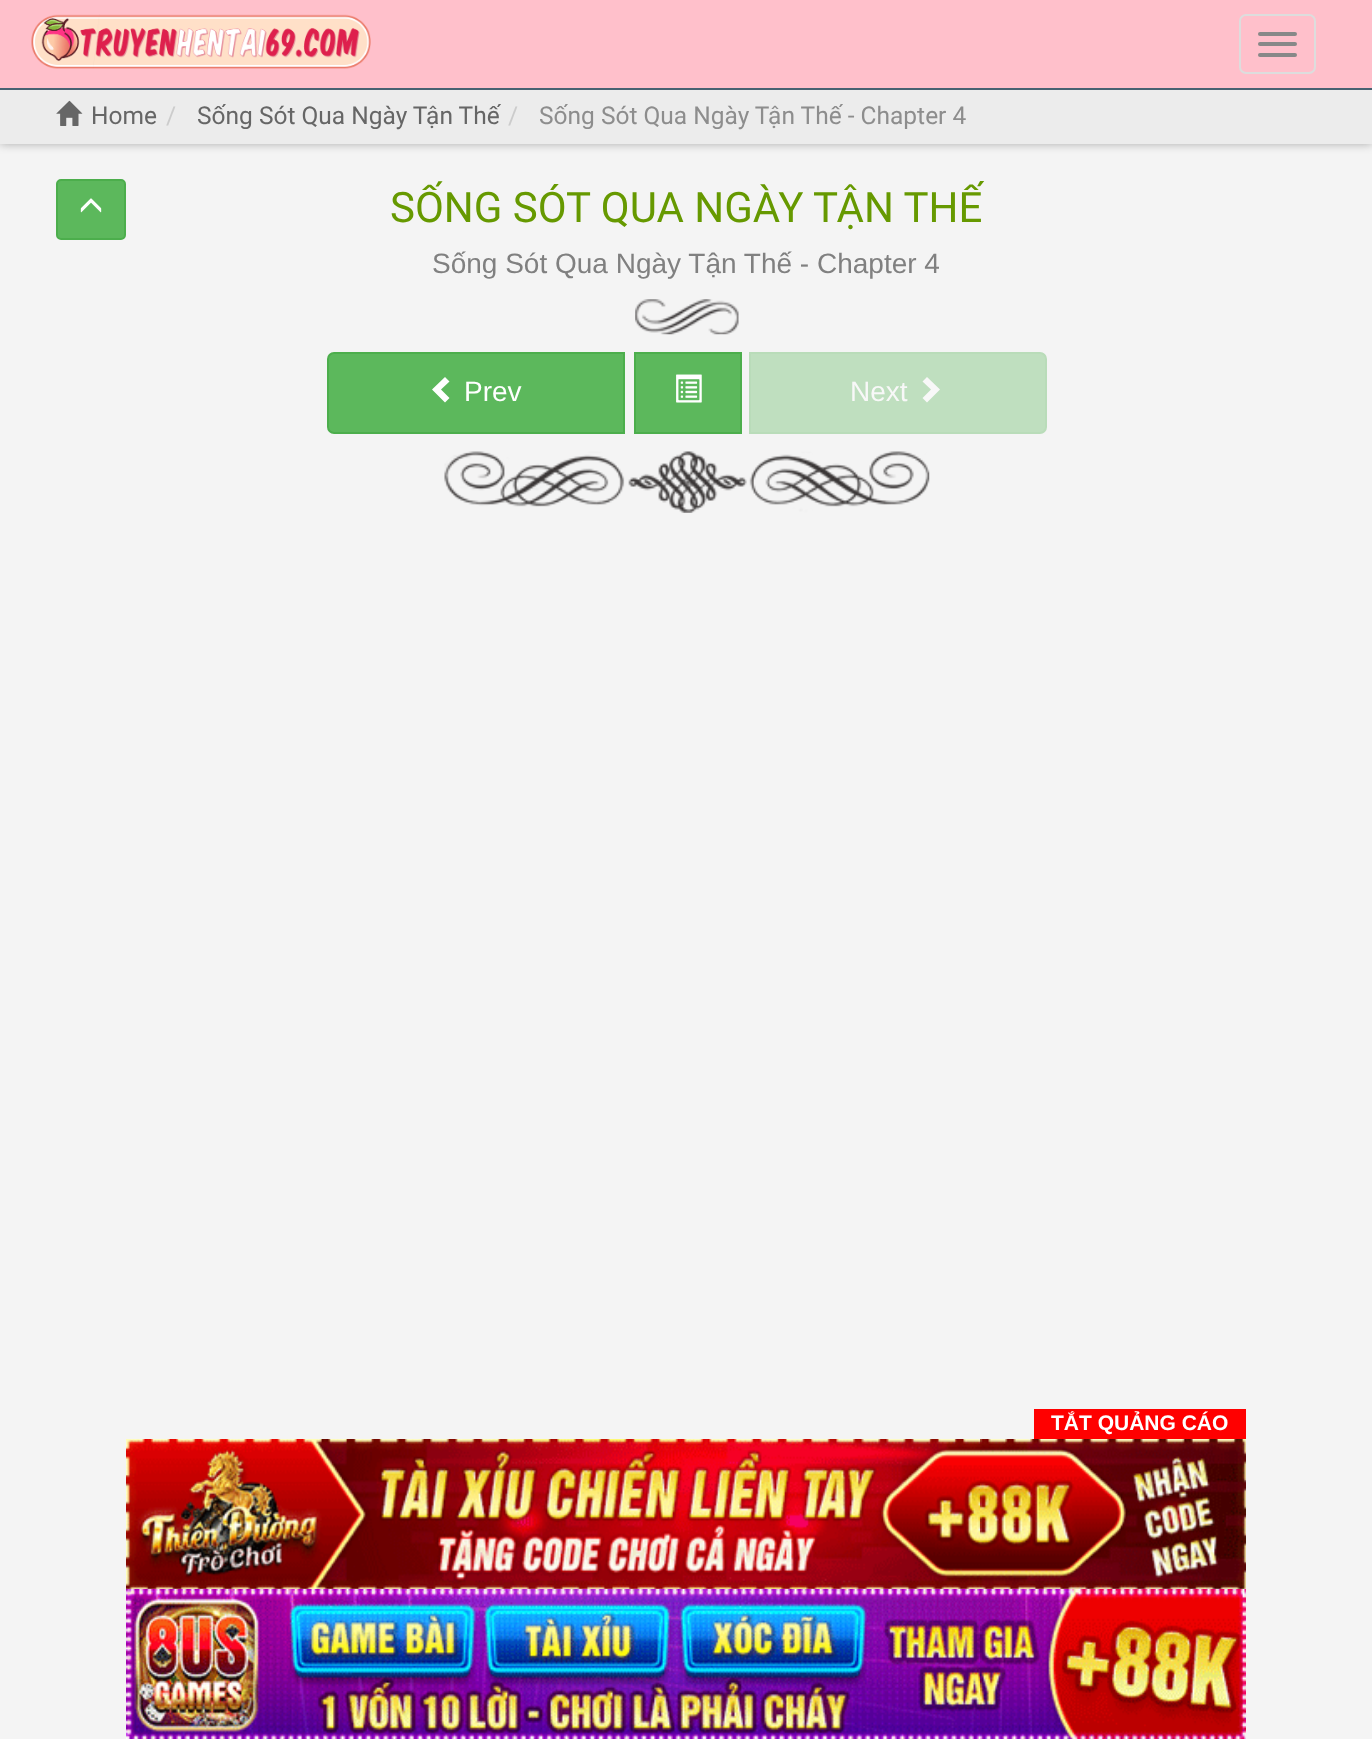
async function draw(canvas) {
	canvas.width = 1372;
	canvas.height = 1739;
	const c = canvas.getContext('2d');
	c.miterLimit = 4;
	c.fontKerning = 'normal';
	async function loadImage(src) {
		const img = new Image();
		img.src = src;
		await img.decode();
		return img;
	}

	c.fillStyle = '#f4f4f4';
	c.fillRect(0, 0, 1372, 1739);
	c.fillStyle = '#0000004d';
	c.filter = 'blur(5px)';
	c.beginPath();
	c.rect(0, 0, 1372, 144);
	c.fill();
	c.filter = 'none';
	c.fillStyle = '#ffc0cb';
	c.fillRect(0, 0, 1372, 88);
	c.fillStyle = '#ececec';
	c.fillRect(0, 90, 1372, 54);
	c.drawImage(await loadImage('img1.png'), 31, 14, 340, 55);
	c.beginPath();
	c.roundRect(1240, 15, 75, 58, 6);
	c.strokeStyle = '#ddd';
	c.lineWidth = 2;
	c.stroke();
	c.fillStyle = '#888';
	c.beginPath();
	c.roundRect(1258, 32, 39, 4, 2);
	c.fill();
	c.beginPath();
	c.roundRect(1258, 42, 39, 4, 2);
	c.fill();
	c.beginPath();
	c.roundRect(1258, 53, 39, 4, 2);
	c.fill();
	c.fillStyle = '#476171';
	c.fillRect(0, 88, 1372, 2);
	c.drawImage(await loadImage('img2.png'), 56, 100, 27, 26);
	c.font = '24.5px Roboto';
	c.fillStyle = '#666';
	c.fillText('Home', 91, 124);
	c.fillStyle = '#ccc';
	c.fillText('/', 166, 124);
	c.fillStyle = '#666';
	c.fillText('Sống Sót Qua Ngày Tận Thế', 197, 124);
	c.fillStyle = '#ccc';
	c.fillText('/', 508, 124);
	c.fillStyle = '#8d8d8d';
	c.fillText('Sống Sót Qua Ngày Tận Thế - Chapter 4', 539, 124);
	c.fillStyle = '#5cb85c';
	c.beginPath();
	c.roundRect(57, 180, 68, 59, 4);
	c.fill();
	c.strokeStyle = '#4cae4c';
	c.stroke();
	c.drawImage(await loadImage('img3.png'), 80, 198, 22, 15);
	c.font = '42px Roboto';
	c.fillStyle = '#690';
	c.fillText('SỐNG SÓT QUA NGÀY TẬN THẾ', 390, 222);
	c.font = '28px Liberation Sans';
	c.fillStyle = '#808080';
	c.fillText('Sống Sót Qua Ngày Tận Thế - Chapter 4', 432, 273);
	c.drawImage(await loadImage('img4.png'), 635, 299, 104, 36);
	c.fillStyle = '#5cb85c';
	c.beginPath();
	c.roundRect(328, 353, 296, 80, [6, 0, 0, 6]);
	c.fill();
	c.stroke();
	c.fillStyle = '#fff';
	c.beginPath();
	c.moveTo(449.5, 381.5);
	c.lineTo(441, 389.5);
	c.lineTo(449.5, 398);
	c.lineTo(445, 402.5);
	c.lineTo(432, 389.5);
	c.lineTo(445, 377);
	c.closePath();
	c.fill();
	c.fillText('Prev', 464, 401);
	c.fillStyle = '#5cb85c';
	c.beginPath();
	c.rect(635, 353, 106, 80);
	c.fill();
	c.stroke();
	c.drawImage(await loadImage('img5.png'), 676, 374, 26, 29);
	c.fillStyle = '#bfdfbf';
	c.beginPath();
	c.roundRect(750, 353, 296, 80, [0, 6, 6, 0]);
	c.fill();
	c.strokeStyle = '#b9dcb9';
	c.stroke();
	c.fillStyle = '#f8f8f8';
	c.fillText('Next', 850, 401);
	c.beginPath();
	c.moveTo(940, 389.5);
	c.lineTo(927, 402.5);
	c.lineTo(922.5, 398);
	c.lineTo(931, 389.5);
	c.lineTo(922.5, 381.5);
	c.lineTo(927, 377);
	c.closePath();
	c.fill();
	c.drawImage(await loadImage('img6.png'), 444, 451, 486, 62);
	c.fillStyle = '#f00';
	c.fillRect(1034, 1409, 212, 30);
	c.font = 'bold 21px Liberation Sans';
	c.fillStyle = '#fff';
	c.fillText('TẮT QUẢNG CÁO', 1051, 1430);
	c.drawImage(await loadImage('img7.png'), 126, 1439, 1120, 150);
	c.drawImage(await loadImage('img8.png'), 126, 1589, 1120, 150);
}

draw(document.querySelector('canvas'));
